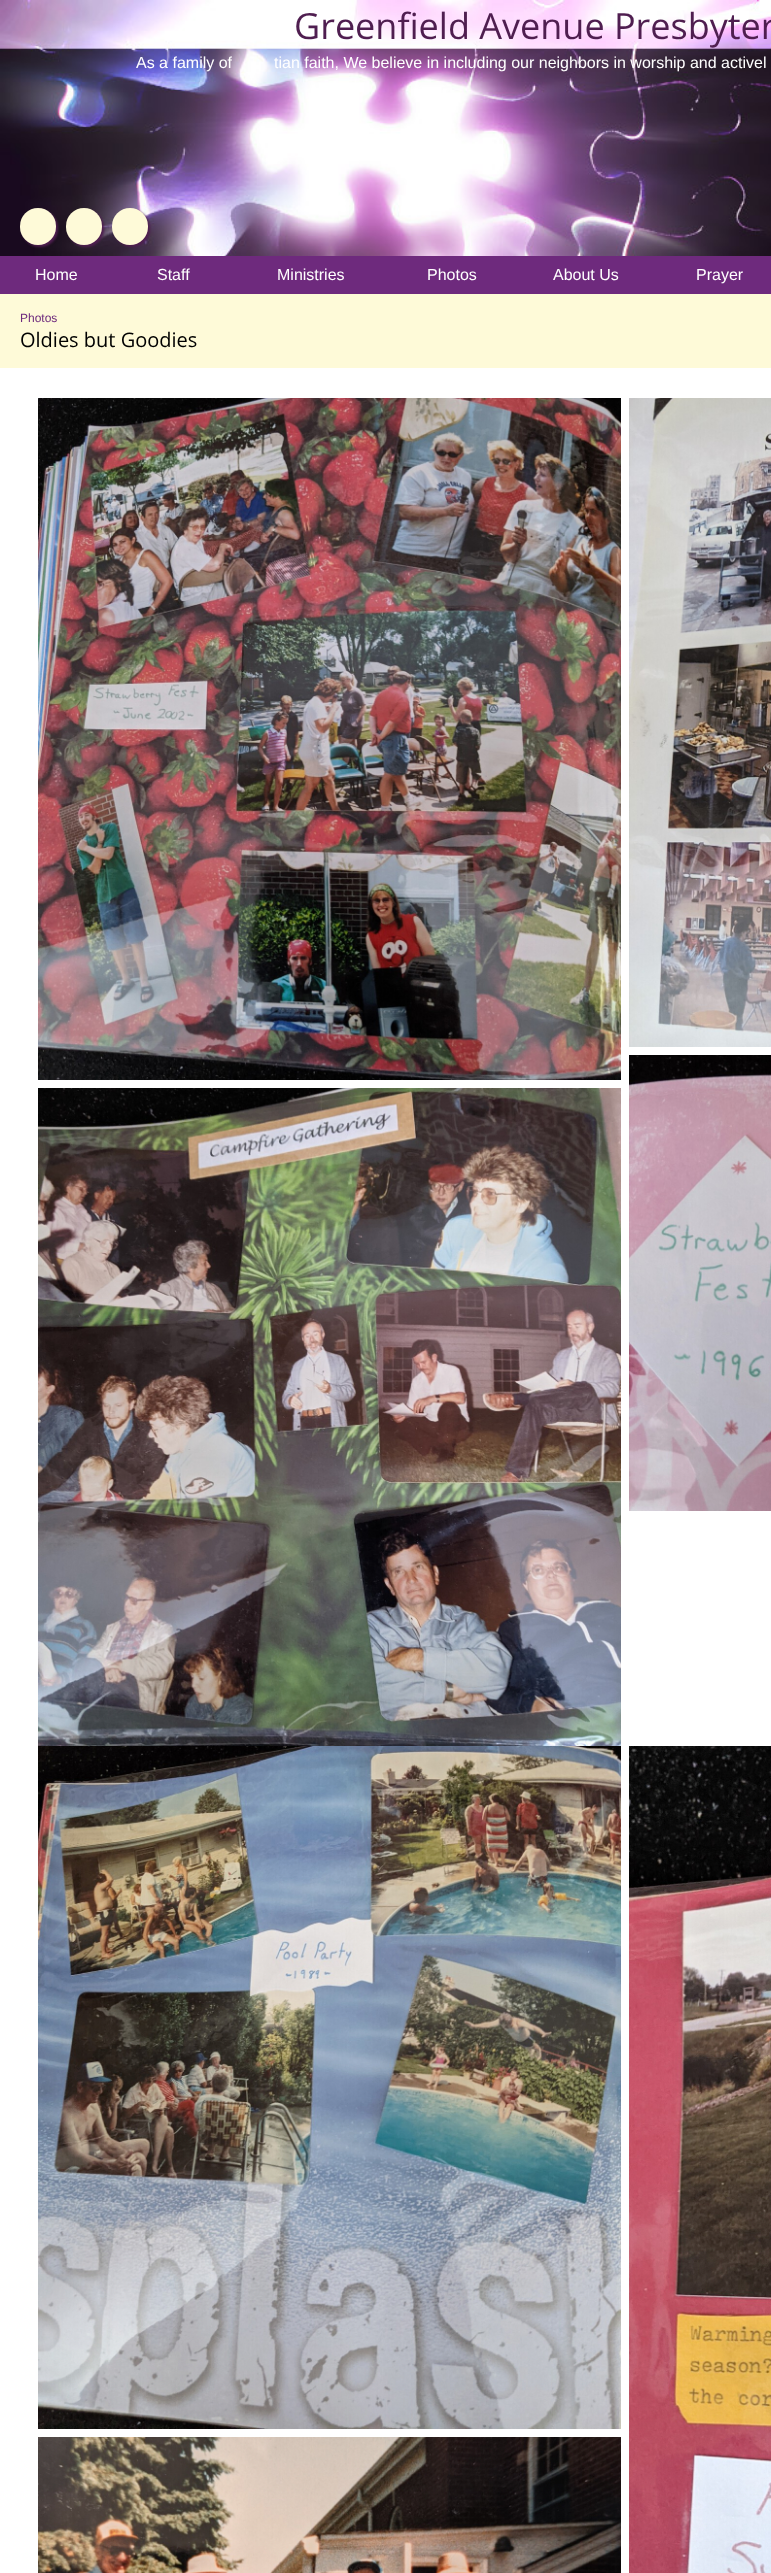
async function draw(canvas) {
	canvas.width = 771;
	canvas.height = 2573;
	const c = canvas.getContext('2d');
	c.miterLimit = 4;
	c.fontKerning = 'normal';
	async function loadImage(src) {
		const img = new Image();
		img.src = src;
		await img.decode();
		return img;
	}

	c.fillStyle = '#6e2a7d';
	c.fillRect(0, 0, 771, 2573);
	c.drawImage(await loadImage('img1.png'), 0, 0, 771, 256);
	c.font = '36px Open Sans';
	c.fillStyle = '#4f1e50';
	c.fillText('Greenfield Avenue Presbyter', 294, 39);
	c.font = '16px Liberation Sans';
	c.fillStyle = '#fff';
	c.fillText('As a family of', 136, 68);
	c.fillText('tian faith, We believe in including our neighbors in worship and activel', 274, 68);
	c.fillStyle = '#4f1e50';
	c.filter = 'blur(1px)';
	c.beginPath();
	c.roundRect(22, 210, 36, 37, 18);
	c.fill();
	c.filter = 'none';
	c.fillStyle = '#fefad8';
	c.beginPath();
	c.roundRect(20, 208, 36, 37, 18);
	c.fill();
	c.fillStyle = '#4f1e50';
	c.filter = 'blur(1px)';
	c.beginPath();
	c.roundRect(68, 210, 36, 37, 18);
	c.fill();
	c.filter = 'none';
	c.fillStyle = '#fefad8';
	c.beginPath();
	c.roundRect(66, 208, 36, 37, 18);
	c.fill();
	c.fillStyle = '#4f1e50';
	c.filter = 'blur(1px)';
	c.beginPath();
	c.roundRect(114, 210, 36, 37, 18);
	c.fill();
	c.filter = 'none';
	c.fillStyle = '#fefad8';
	c.beginPath();
	c.roundRect(112, 208, 36, 37, 18);
	c.fill();
	c.fillStyle = '#fff';
	for (const [text, x, y] of [
		['Home', 35, 280],
		['Staff', 157, 280],
		['Ministries', 277, 280],
		['Photos', 427, 280],
		['About Us', 553, 280],
		['Prayer', 696, 280],
	]) {
		c.fillText(text, x, y);
	}
	c.fillRect(0, 368, 771, 2205);
	c.fillStyle = '#fefad8';
	c.fillRect(0, 294, 771, 74);
	c.font = '12px Liberation Sans';
	c.fillStyle = '#6e2a7d';
	c.fillText('Photos', 20, 322);
	c.font = '20px Open Sans';
	c.fillStyle = '#000';
	c.fillText('Oldies but Goodies', 20, 347);
	c.drawImage(await loadImage('img2.png'), 38, 398, 583, 682);
	c.drawImage(await loadImage('img3.png'), 38, 1088, 583, 658);
	c.drawImage(await loadImage('img4.png'), 629, 398, 142, 649);
	c.drawImage(await loadImage('img5.png'), 629, 1055, 142, 456);
	c.drawImage(await loadImage('img6.png'), 38, 1746, 583, 683);
	c.drawImage(await loadImage('img7.png'), 38, 2437, 583, 136);
	c.drawImage(await loadImage('img8.png'), 629, 1746, 142, 827);
}

draw(document.querySelector('canvas'));
